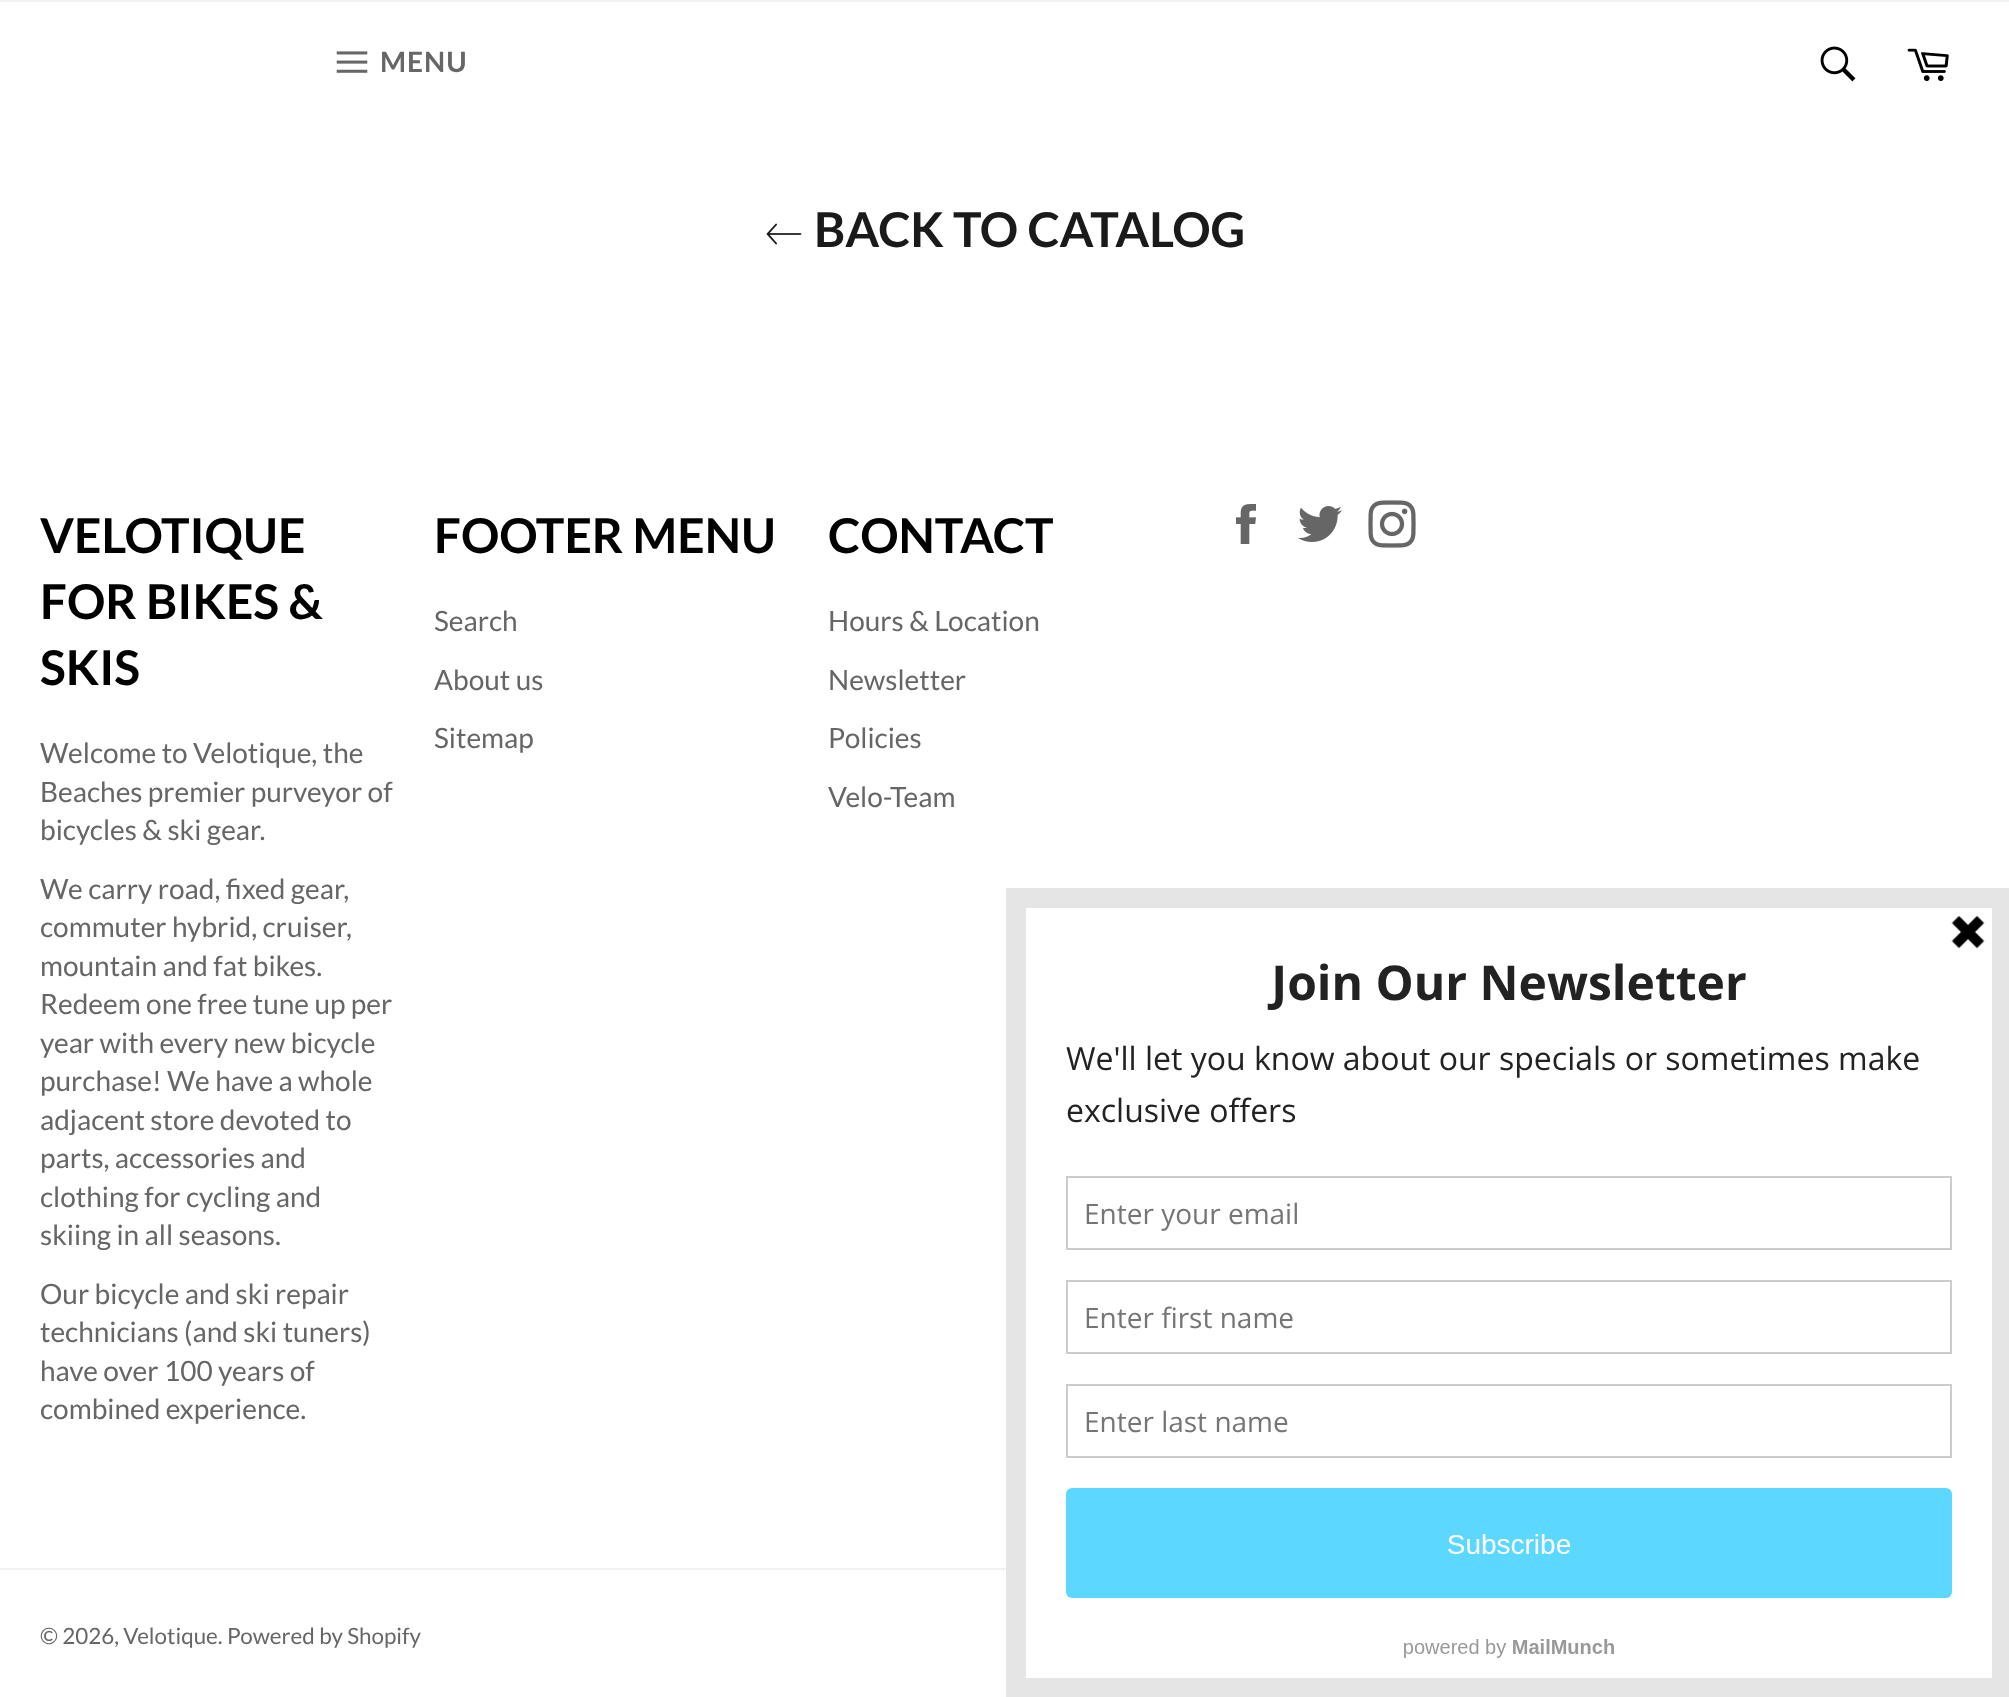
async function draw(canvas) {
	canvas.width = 2009;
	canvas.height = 1697;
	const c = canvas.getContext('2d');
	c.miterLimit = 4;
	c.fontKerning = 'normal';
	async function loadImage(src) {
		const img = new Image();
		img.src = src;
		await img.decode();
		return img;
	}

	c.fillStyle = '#fff';
	c.fillRect(0, 0, 2009, 1697);
	c.fillStyle = '#f2f2f2';
	c.fillRect(0, 0, 2009, 2);
	c.drawImage(await loadImage('img1.png'), 336, 51, 32, 22);
	c.letterSpacing = '1px';
	c.font = 'bold 28px Lato';
	c.fillStyle = '#666';
	c.fillText('MENU', 380, 72);
	c.drawImage(await loadImage('img2.png'), 1820, 46, 36, 36);
	c.drawImage(await loadImage('img3.png'), 1907, 48, 42, 33);
	c.drawImage(await loadImage('img4.png'), 766, 223, 36, 22);
	c.letterSpacing = '0px';
	c.font = 'bold 48px Lato';
	c.fillStyle = '#1a1a1a';
	c.fillText('BACK TO CATALOG', 814, 247);
	c.fillStyle = '#000';
	for (const [text, x, y] of [
		['VELOTIQUE', 40, 553],
		['FOR BIKES &', 40, 619],
		['SKIS', 40, 685],
	]) {
		c.fillText(text, x, y);
	}
	c.font = '28px Lato';
	c.fillStyle = '#666';
	for (const [text, x, y] of [
		['Welcome to Velotique, the', 40, 763],
		['Beaches premier purveyor of', 40, 802],
		['bicycles & ski gear.', 40, 840],
		['We carry road, fixed gear,', 40, 899],
		['commuter hybrid, cruiser,', 40, 937],
		['mountain and fat bikes.', 40, 976],
		['Redeem one free tune up per', 40, 1014],
		['year with every new bicycle', 40, 1053],
		['purchase! We have a whole', 40, 1091],
		['adjacent store devoted to', 40, 1130],
		['parts, accessories and', 40, 1168],
		['clothing for cycling and', 40, 1207],
		['skiing in all seasons.', 40, 1245],
		['Our bicycle and ski repair', 40, 1304],
		['technicians (and ski tuners)', 40, 1342],
		['have over 100 years of', 40, 1381],
		['combined experience.', 40, 1419],
	]) {
		c.fillText(text, x, y);
	}
	c.font = 'bold 48px Lato';
	c.fillStyle = '#000';
	c.fillText('FOOTER MENU', 434, 553);
	c.font = '28px Lato';
	c.fillStyle = '#666';
	for (const [text, x, y] of [
		['Search', 434, 631],
		['About us', 434, 690],
		['Sitemap', 434, 748],
	]) {
		c.fillText(text, x, y);
	}
	c.font = 'bold 48px Lato';
	c.fillStyle = '#000';
	c.fillText('CONTACT', 828, 553);
	c.font = '28px Lato';
	c.fillStyle = '#666';
	for (const [text, x, y] of [
		['Hours & Location', 828, 631],
		['Newsletter', 828, 690],
		['Policies', 828, 748],
		['Velo-Team', 828, 807],
	]) {
		c.fillText(text, x, y);
	}
	c.drawImage(await loadImage('img5.png'), 1236, 504, 20, 40);
	c.drawImage(await loadImage('img6.png'), 1298, 506, 44, 36);
	c.drawImage(await loadImage('img7.png'), 1368, 500, 48, 48);
	c.fillStyle = '#f2f2f2';
	c.fillRect(0, 1568, 1006, 2);
	c.font = '22.4px Lato';
	c.fillStyle = '#666';
	c.fillText('© 2026, Velotique. Powered by Shopify', 40, 1644);
	c.drawImage(await loadImage('img8.png'), 1006, 888, 1003, 809);
}

draw(document.querySelector('canvas'));
